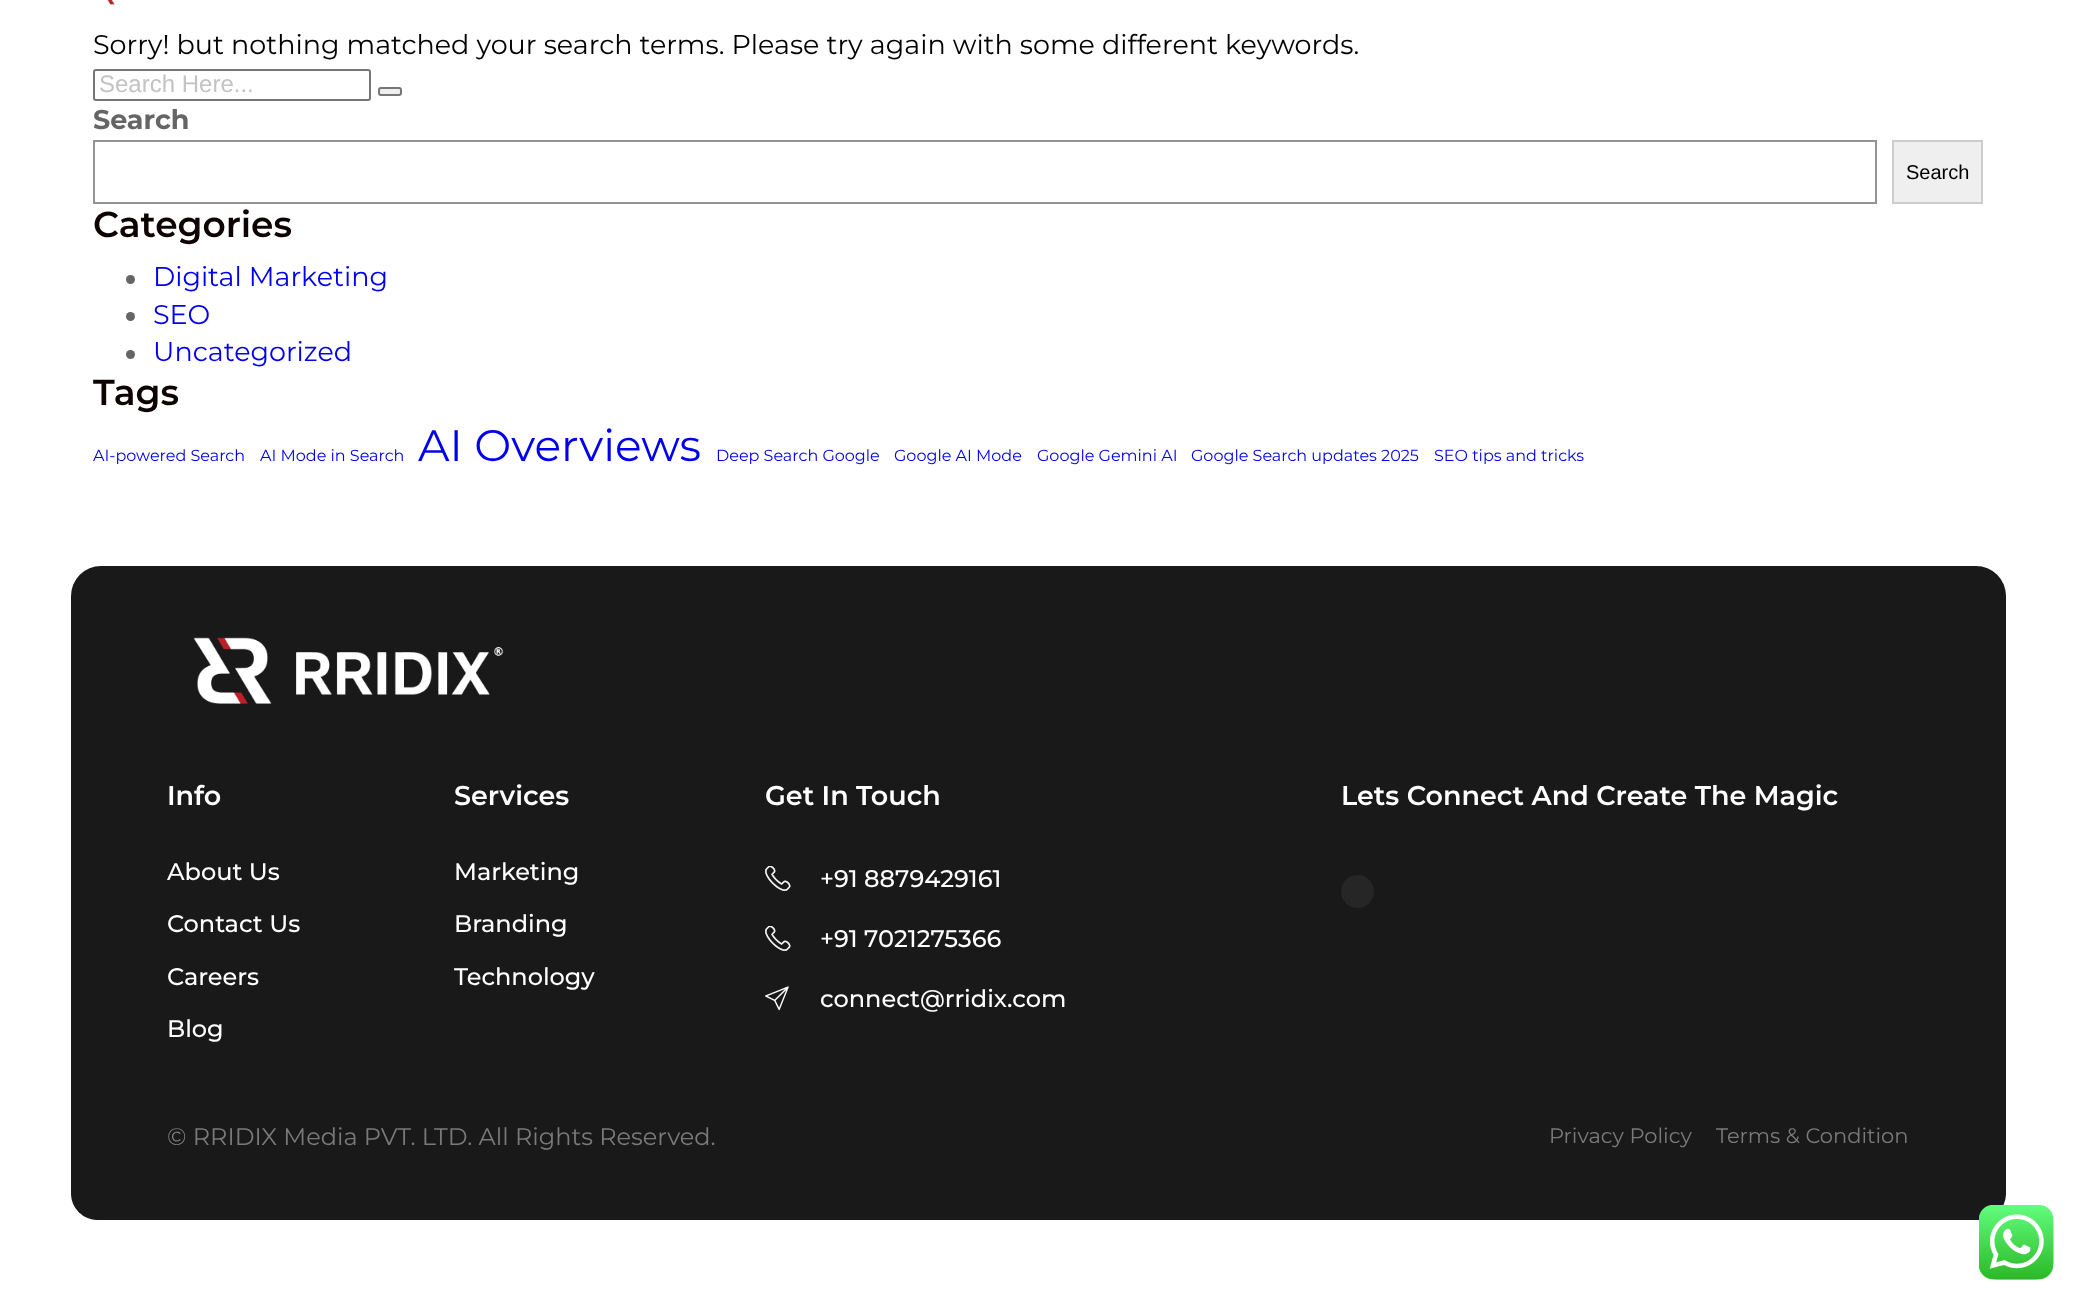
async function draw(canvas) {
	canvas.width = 2076;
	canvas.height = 1301;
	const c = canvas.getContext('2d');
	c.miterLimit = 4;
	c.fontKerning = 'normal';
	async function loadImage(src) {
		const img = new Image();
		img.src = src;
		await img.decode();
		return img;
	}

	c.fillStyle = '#fff';
	c.fillRect(0, 0, 2076, 1301);
	c.drawImage(await loadImage('img1.png'), 107, 0, 8, 5);
	c.font = '27px Montserrat';
	c.fillStyle = '#000';
	c.fillText('Sorry! but nothing matched your search terms. Please try again with some different keywords.', 93, 54);
	c.beginPath();
	c.roundRect(94, 70, 276, 30, 2);
	c.strokeStyle = '#767676';
	c.lineWidth = 2;
	c.stroke();
	c.font = '24px Liberation Sans';
	c.fillStyle = '#c3c3c3';
	c.fillText('Search Here...', 99, 92);
	c.fillStyle = '#efefef';
	c.beginPath();
	c.roundRect(379, 88, 22, 7, 2);
	c.fill();
	c.stroke();
	c.font = 'bold 27px Montserrat';
	c.fillStyle = '#656565';
	c.fillText('Search', 93, 129);
	c.strokeStyle = '#949494';
	c.strokeRect(94, 141, 1782, 62);
	c.fillStyle = '#efefef';
	c.beginPath();
	c.rect(1893, 141, 89, 62);
	c.fill();
	c.strokeStyle = '#ccc';
	c.stroke();
	c.font = '20px Liberation Sans';
	c.fillStyle = '#000';
	c.fillText('Search', 1906, 179);
	c.font = '600 36px Montserrat';
	c.fillStyle = '#0d0303';
	c.fillText('Categories', 93, 237);
	c.fillStyle = '#656565';
	c.beginPath();
	c.arc(130.5, 279.5, 4.5, 0, 2 * Math.PI);
	c.fill();
	c.font = '27px Montserrat';
	c.fillStyle = '#00e';
	c.fillText('Digital Marketing', 153, 286);
	c.fillStyle = '#656565';
	c.beginPath();
	c.arc(130.5, 316.5, 4.5, 0, 2 * Math.PI);
	c.fill();
	c.fillStyle = '#00e';
	c.fillText('SEO', 153, 324);
	c.fillStyle = '#656565';
	c.beginPath();
	c.arc(130.5, 354.5, 4.5, 0, 2 * Math.PI);
	c.fill();
	c.fillStyle = '#00e';
	c.fillText('Uncategorized', 153, 361);
	c.font = '600 36px Montserrat';
	c.fillStyle = '#0d0303';
	c.fillText('Tags', 93, 405);
	c.font = '16px Montserrat';
	c.fillStyle = '#00e';
	c.fillText('AI-powered Search', 93, 461);
	c.fillText('AI Mode in Search', 260, 461);
	c.font = '44px Montserrat';
	c.fillText('AI Overviews', 418, 461);
	c.font = '16px Montserrat';
	for (const [text, x, y] of [
		['Deep Search Google', 716, 461],
		['Google AI Mode', 894, 461],
		['Google Gemini AI', 1037, 461],
		['Google Search updates 2025', 1191, 461],
		['SEO tips and tricks', 1434, 461],
	]) {
		c.fillText(text, x, y);
	}
	c.fillStyle = '#191919';
	c.beginPath();
	c.roundRect(71, 566, 1935, 297, 30);
	c.fill();
	c.drawImage(await loadImage('img2.png'), 193, 637, 311, 67);
	c.beginPath();
	c.roundRect(71, 728, 1935, 361, 30);
	c.fill();
	c.font = '600 27px Montserrat';
	c.fillStyle = '#fff';
	c.fillText('Info', 167, 805);
	c.font = '500 24px Montserrat';
	for (const [text, x, y] of [
		['About Us', 167, 880],
		['Contact Us', 167, 932],
		['Careers', 167, 985],
		['Blog', 167, 1037],
	]) {
		c.fillText(text, x, y);
	}
	c.font = '600 27px Montserrat';
	c.fillText('Services', 454, 805);
	c.font = '500 24px Montserrat';
	for (const [text, x, y] of [
		['Marketing', 454, 880],
		['Branding', 454, 932],
		['Technology', 454, 985],
	]) {
		c.fillText(text, x, y);
	}
	c.font = '600 27px Montserrat';
	c.fillText('Get In Touch', 765, 805);
	c.drawImage(await loadImage('img3.png'), 765, 866, 26, 25);
	c.font = '500 24px Montserrat';
	c.fillText('+91 8879429161', 820, 887);
	c.drawImage(await loadImage('img3.png'), 765, 926, 26, 25);
	c.fillText('+91 7021275366', 820, 947);
	c.drawImage(await loadImage('img4.png'), 765, 986, 24, 25);
	c.fillText('connect@rridix.com', 820, 1007);
	c.font = '600 27px Montserrat';
	c.fillText('Lets Connect And Create The Magic', 1341, 805);
	c.fillStyle = '#262626';
	c.beginPath();
	c.arc(1357.5, 891.5, 16.5, 0, 2 * Math.PI);
	c.fill();
	c.fillStyle = '#191919';
	c.beginPath();
	c.roundRect(71, 1053, 1935, 167, [0, 0, 30, 30]);
	c.fill();
	c.font = '24px Montserrat';
	c.fillStyle = '#7a7a7a';
	c.fillText('© RRIDIX Media PVT. LTD. All Rights Reserved.', 167, 1145);
	c.font = '21px Montserrat';
	c.fillText('Privacy Policy', 1549, 1143);
	c.fillText('Terms & Condition', 1716, 1143);
	c.fillStyle = '#191919';
	c.beginPath();
	c.roundRect(71, 1167, 1935, 53, 26.5);
	c.fill();
	c.drawImage(await loadImage('img5.png'), 1979, 1205, 75, 75);
}

draw(document.querySelector('canvas'));
